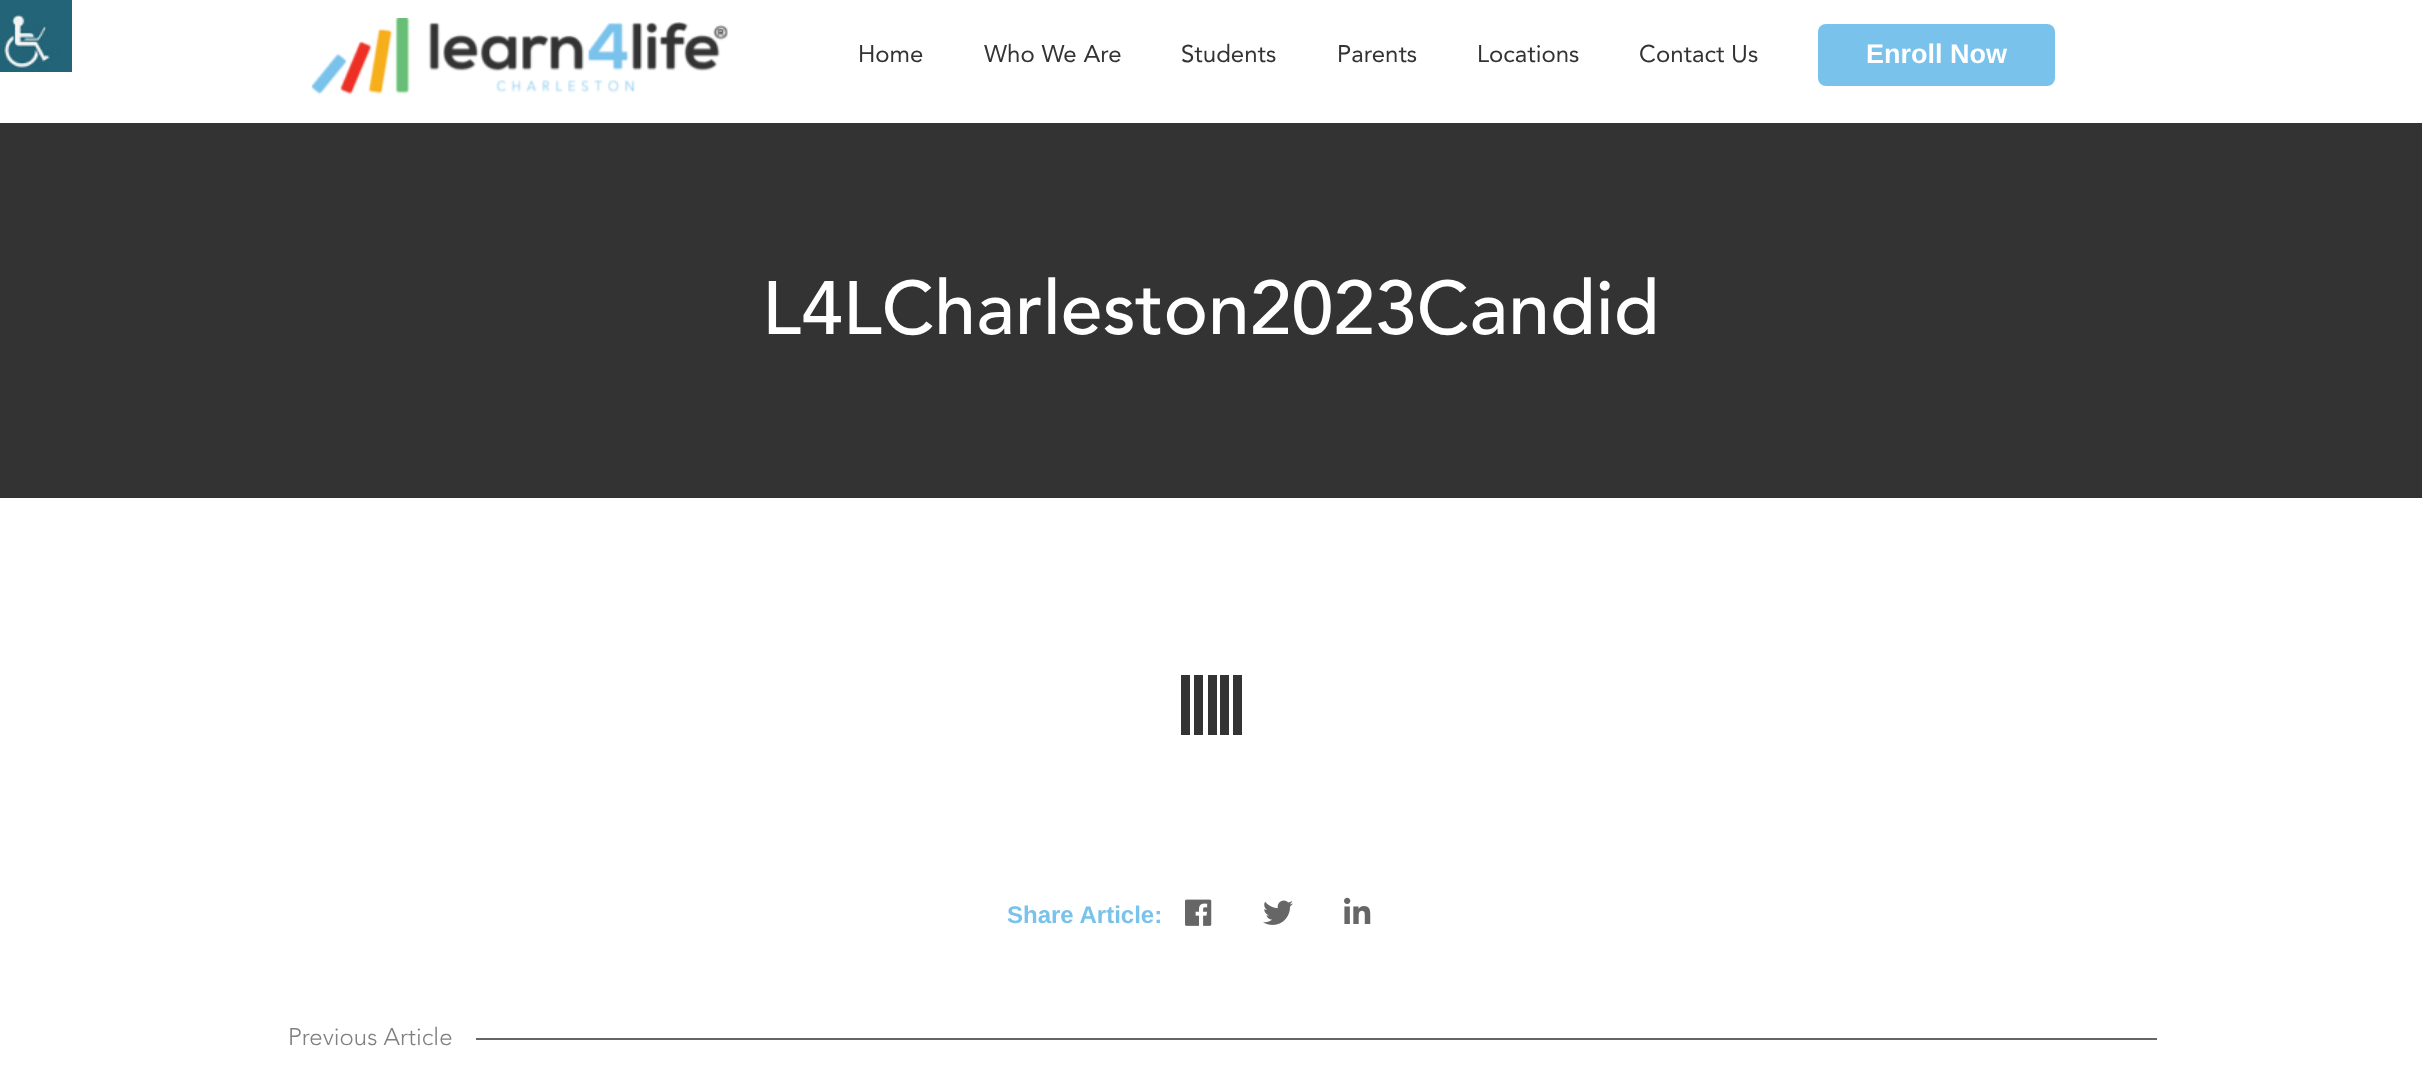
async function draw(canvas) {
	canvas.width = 2422;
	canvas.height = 1085;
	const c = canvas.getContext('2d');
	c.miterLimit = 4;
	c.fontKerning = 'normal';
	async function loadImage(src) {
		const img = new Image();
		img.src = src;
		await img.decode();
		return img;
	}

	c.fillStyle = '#fff';
	c.fillRect(0, 0, 2422, 1085);
	c.drawImage(await loadImage('img1.png'), 0, 0, 72, 72);
	c.drawImage(await loadImage('img2.png'), 311, 18, 417, 77);
	c.font = '24px Avenir';
	c.fillStyle = '#333';
	for (const [text, x, y] of [
		['Home', 858, 62],
		['Who We Are', 984, 62],
		['Students', 1181, 62],
		['Parents', 1337, 62],
		['Locations', 1477, 62],
		['Contact Us', 1639, 62],
	]) {
		c.fillText(text, x, y);
	}
	c.fillStyle = '#78c2eb';
	c.beginPath();
	c.roundRect(1818, 24, 237, 62, 8);
	c.fill();
	c.font = 'bold 27px Liberation Sans';
	c.fillStyle = '#fff';
	c.fillText('Enroll Now', 1866, 63);
	c.fillStyle = '#333';
	c.fillRect(0, 123, 2422, 375);
	c.font = '500 75px Avenir';
	c.fillStyle = '#fff';
	c.fillText('L4LCharleston2023Candid', 762, 334);
	for (const [x, y, w, h, color] of [
		[1181, 675, 9, 60, '#333'],
		[1194, 675, 9, 60, '#333'],
		[1208, 675, 9, 60, '#333'],
		[1220, 675, 9, 60, '#333'],
		[1233, 675, 9, 60, '#333'],
	]) {
		c.fillStyle = color;
		c.fillRect(x, y, w, h);
	}
	c.font = 'bold 24px Liberation Sans';
	c.fillStyle = '#78c2eb';
	c.fillText('Share Article:', 1007, 923);
	c.drawImage(await loadImage('img3.png'), 1185, 899, 27, 27);
	c.drawImage(await loadImage('img4.png'), 1263, 900, 30, 25);
	c.drawImage(await loadImage('img5.png'), 1344, 897, 27, 27);
	c.font = '300 24px Avenir';
	c.fillStyle = '#7f7f7f';
	c.fillText('Previous Article', 288, 1045);
	c.fillStyle = '#666';
	c.fillRect(476, 1038, 1681, 2);
}

draw(document.querySelector('canvas'));
